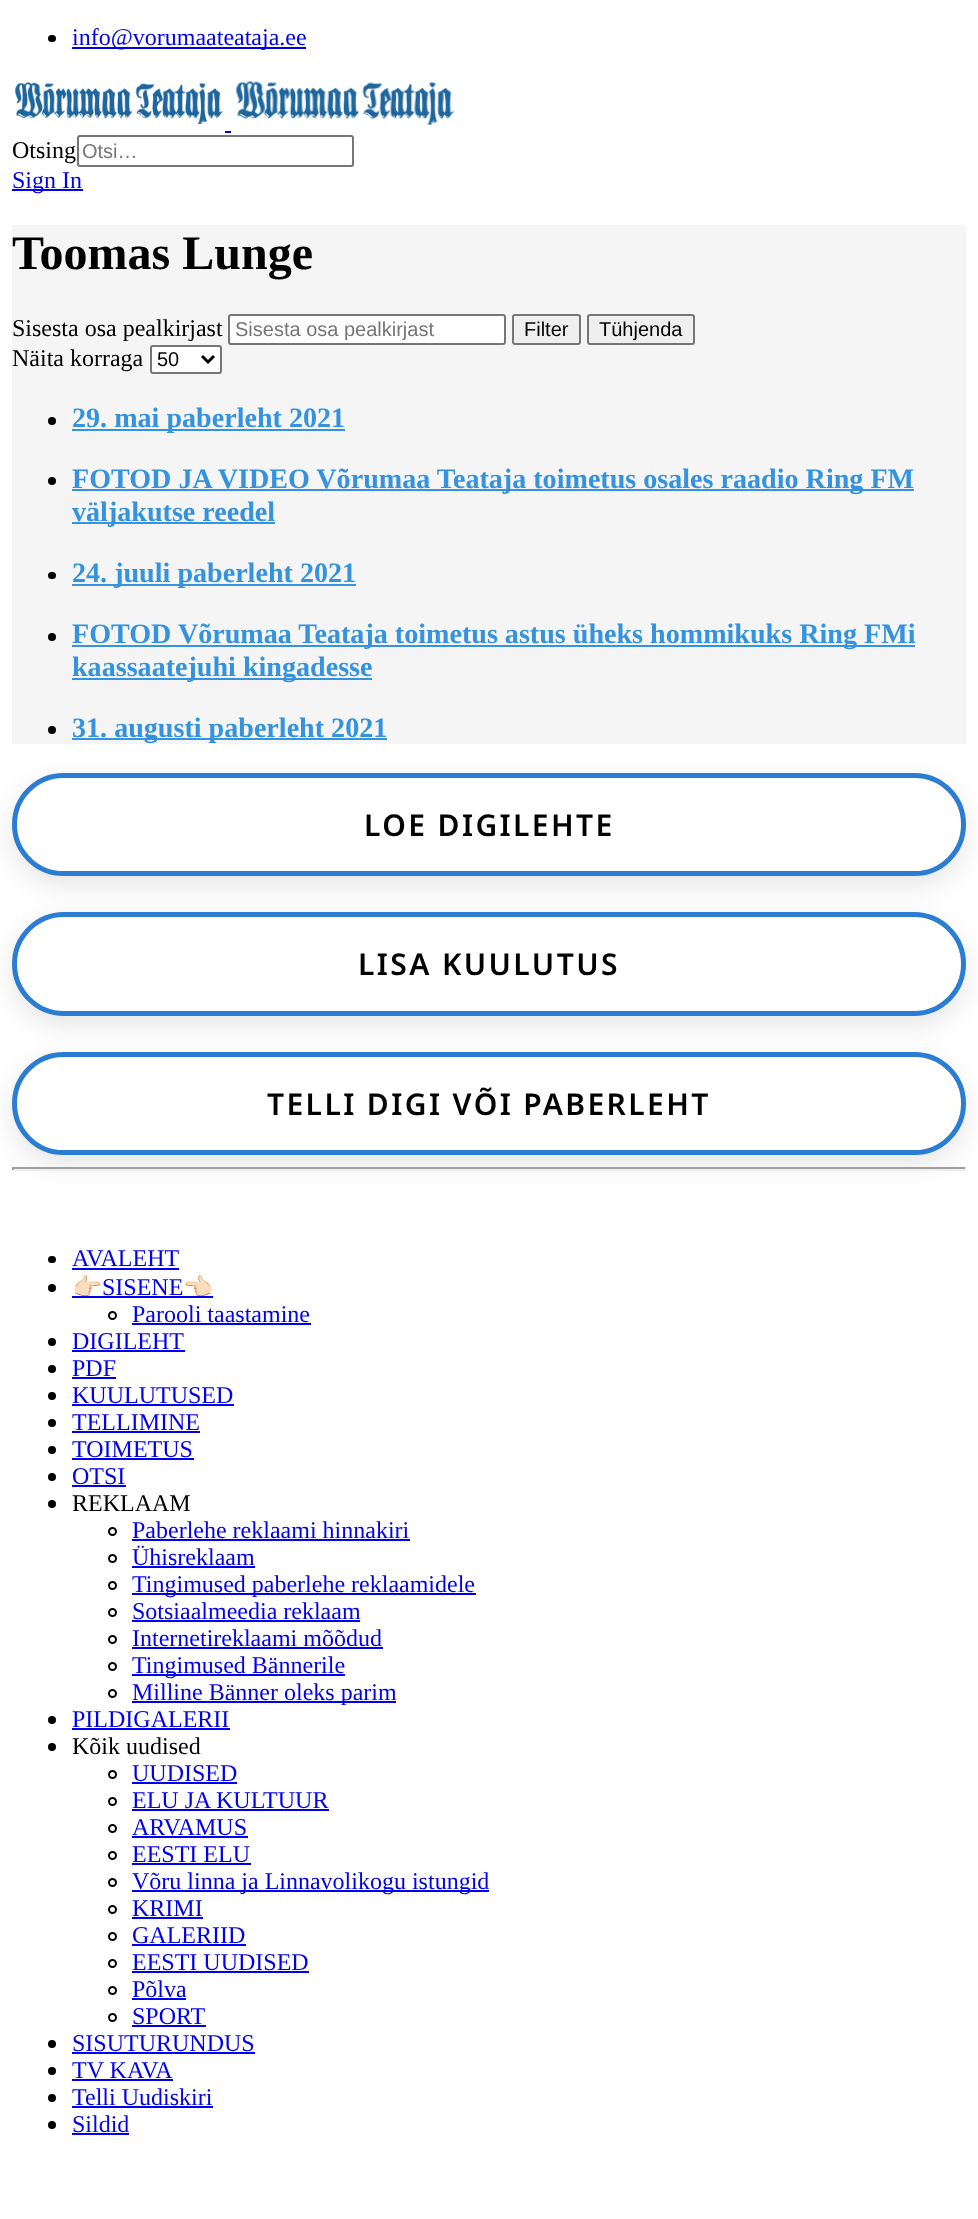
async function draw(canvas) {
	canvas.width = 978;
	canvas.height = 2219;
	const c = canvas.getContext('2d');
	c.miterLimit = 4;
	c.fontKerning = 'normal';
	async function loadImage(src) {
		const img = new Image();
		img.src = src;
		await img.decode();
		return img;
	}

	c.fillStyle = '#fff';
	c.fillRect(0, 0, 978, 2219);
	c.fillStyle = '#000';
	c.beginPath();
	c.roundRect(48, 35, 8, 7, 3.5);
	c.fill();
	c.fillStyle = '#00e';
	c.fillRect(72, 47, 234, 2);
	c.font = '24px Liberation Serif';
	c.fillText('info@vorumaateataja.ee', 72, 45);
	c.drawImage(await loadImage('img1.png'), 15, 82, 208, 42);
	c.drawImage(await loadImage('img2.png'), 236, 81, 218, 44);
	c.fillRect(225, 131, 6, 2);
	c.fillStyle = '#000';
	c.fillText('Otsing', 12, 158);
	c.beginPath();
	c.roundRect(78, 136, 275, 30, 2);
	c.strokeStyle = '#767676';
	c.lineWidth = 2;
	c.stroke();
	c.font = '20px Liberation Sans';
	c.fillStyle = '#757575';
	c.fillText('Otsi…', 82, 158);
	c.fillStyle = '#00e';
	c.fillRect(12, 189, 71, 2);
	c.font = '24px Liberation Serif';
	c.fillText('Sign In', 12, 188);
	c.fillStyle = '#f5f5f5';
	c.fillRect(12, 225, 954, 519);
	c.font = 'bold 48px Liberation Serif';
	c.fillStyle = '#000';
	c.fillText('Toomas Lunge', 12, 269);
	c.font = '24px Liberation Serif';
	c.fillText('Sisesta osa pealkirjast', 12, 336);
	c.fillStyle = '#fff';
	c.beginPath();
	c.roundRect(229, 315, 276, 29, 2);
	c.fill();
	c.stroke();
	c.font = '20px Liberation Sans';
	c.fillStyle = '#757575';
	c.fillText('Sisesta osa pealkirjast', 235, 336);
	c.fillStyle = '#efefef';
	c.beginPath();
	c.roundRect(513, 315, 67, 29, 2);
	c.fill();
	c.stroke();
	c.fillStyle = '#000';
	c.fillText('Filter', 524, 336);
	c.fillStyle = '#efefef';
	c.beginPath();
	c.roundRect(588, 315, 106, 29, 2);
	c.fill();
	c.stroke();
	c.fillStyle = '#000';
	c.fillText('Tühjenda', 599, 336);
	c.font = '24px Liberation Serif';
	c.fillText('Näita korraga', 12, 366);
	c.fillStyle = '#fff';
	c.beginPath();
	c.roundRect(151, 346, 70, 27, 2);
	c.fill();
	c.stroke();
	c.beginPath();
	c.moveTo(202, 356);
	c.lineTo(208, 362);
	c.lineTo(214, 356);
	c.strokeStyle = '#000';
	c.lineWidth = 3;
	c.stroke();
	c.font = '20px Liberation Sans';
	c.fillStyle = '#000';
	c.fillText('50', 157, 366);
	c.fillStyle = '#030000';
	c.beginPath();
	c.arc(52, 421, 4, 0, 2 * Math.PI);
	c.fill();
	c.fillStyle = '#3592de';
	c.fillRect(72, 429, 273, 2);
	c.font = 'bold 28.1px Liberation Serif';
	c.fillText('29. mai paberleht 2021', 72, 427);
	c.fillStyle = '#030000';
	c.beginPath();
	c.arc(52, 481, 4, 0, 2 * Math.PI);
	c.fill();
	c.fillStyle = '#3592de';
	c.fillRect(72, 489, 842, 2);
	c.fillText('FOTOD JA VIDEO Võrumaa Teataja toimetus osales raadio Ring FM', 72, 488);
	c.fillRect(72, 522, 203, 2);
	c.fillText('väljakutse reedel', 72, 521);
	c.fillStyle = '#030000';
	c.beginPath();
	c.roundRect(48, 572, 8, 7, 3.5);
	c.fill();
	c.fillStyle = '#3592de';
	c.fillRect(72, 584, 284, 2);
	c.fillText('24. juuli paberleht 2021', 72, 582);
	c.fillStyle = '#030000';
	c.beginPath();
	c.arc(52, 637, 4, 0, 2 * Math.PI);
	c.fill();
	c.fillStyle = '#3592de';
	c.fillRect(72, 645, 843, 2);
	c.fillText('FOTOD Võrumaa Teataja toimetus astus üheks hommikuks Ring FMi', 72, 643);
	c.fillRect(72, 678, 300, 2);
	c.fillText('kaassaatejuhi kingadesse', 72, 676);
	c.fillStyle = '#030000';
	c.beginPath();
	c.arc(52, 730, 4, 0, 2 * Math.PI);
	c.fill();
	c.fillStyle = '#3592de';
	c.fillRect(72, 738, 315, 2);
	c.fillText('31. augusti paberleht 2021', 72, 737);
	c.fillStyle = '#0000001a';
	c.filter = 'blur(13.5px)';
	c.beginPath();
	c.roundRect(12, 782, 954, 103, 51.5);
	c.fill();
	c.filter = 'none';
	c.fillStyle = '#fff';
	c.beginPath();
	c.roundRect(14.5, 775.5, 949, 98, 49);
	c.fill();
	c.strokeStyle = '#2b7cd3';
	c.lineWidth = 5;
	c.stroke();
	c.letterSpacing = '2.4px';
	c.font = '600 30px Noto Sans';
	c.fillStyle = '#000';
	c.fillText('LOE DIGILEHTE', 364, 836);
	c.fillStyle = '#0000001a';
	c.filter = 'blur(13.5px)';
	c.beginPath();
	c.roundRect(12, 921, 954, 104, 52);
	c.fill();
	c.filter = 'none';
	c.fillStyle = '#fff';
	c.beginPath();
	c.roundRect(14.5, 914.5, 949, 99, 49.5);
	c.fill();
	c.stroke();
	c.fillStyle = '#000';
	c.fillText('LISA KUULUTUS', 358, 975);
	c.fillStyle = '#0000001a';
	c.filter = 'blur(13.5px)';
	c.beginPath();
	c.roundRect(12, 1061, 954, 103, 51.5);
	c.fill();
	c.filter = 'none';
	c.fillStyle = '#fff';
	c.beginPath();
	c.roundRect(14.5, 1054.5, 949, 98, 49);
	c.fill();
	c.stroke();
	c.fillStyle = '#000';
	c.fillText('TELLI DIGI VÕI PABERLEHT', 267, 1115);
	for (const [x, y, w, h, color] of [
		[12, 1167, 954, 2, '#9f9f9f'],
		[965, 1167, 2, 3, '#eee'],
		[12, 1169, 954, 2, '#eee'],
		[12, 1167, 2, 3, '#9f9f9f'],
	]) {
		c.fillStyle = color;
		c.fillRect(x, y, w, h);
	}
	c.fillStyle = '#000';
	c.beginPath();
	c.roundRect(48, 1256, 8, 7, 3.5);
	c.fill();
	c.letterSpacing = '0px';
	c.font = '24px Liberation Serif';
	c.fillStyle = '#00e';
	c.fillText('AVALEHT', 72, 1266);
	c.fillRect(72, 1268, 107, 2);
	c.fillStyle = '#000';
	c.beginPath();
	c.arc(52, 1288, 4, 0, 2 * Math.PI);
	c.fill();
	c.fillStyle = '#00e';
	c.fillRect(72, 1296, 141, 2);
	c.font = '24px Noto Color Emoji';
	c.fillText('👉🏻', 72, 1295);
	c.font = '24px Liberation Serif';
	c.fillText('SISENE', 102, 1295);
	c.font = '24px Noto Color Emoji';
	c.fillText('👈🏻', 183, 1295);
	c.beginPath();
	c.arc(112.5, 1315.5, 3.5, 0, 2 * Math.PI);
	c.strokeStyle = '#000';
	c.lineWidth = 2;
	c.stroke();
	c.font = '24px Liberation Serif';
	c.fillText('Parooli taastamine', 132, 1322);
	c.fillRect(132, 1323, 179, 2);
	c.fillStyle = '#000';
	c.beginPath();
	c.arc(52, 1342, 4, 0, 2 * Math.PI);
	c.fill();
	c.fillStyle = '#00e';
	c.fillText('DIGILEHT', 72, 1349);
	c.fillRect(72, 1350, 113, 2);
	c.fillStyle = '#000';
	c.beginPath();
	c.arc(52, 1369, 4, 0, 2 * Math.PI);
	c.fill();
	c.fillStyle = '#00e';
	c.fillText('PDF', 72, 1376);
	c.fillRect(72, 1377, 44, 2);
	c.fillStyle = '#000';
	c.beginPath();
	c.arc(52, 1396, 4, 0, 2 * Math.PI);
	c.fill();
	c.fillStyle = '#00e';
	c.fillText('KUULUTUSED', 72, 1403);
	c.fillRect(72, 1404, 162, 2);
	c.fillStyle = '#000';
	c.beginPath();
	c.arc(52, 1423, 4, 0, 2 * Math.PI);
	c.fill();
	c.fillStyle = '#00e';
	c.fillText('TELLIMINE', 72, 1430);
	c.fillRect(72, 1431, 128, 2);
	c.fillStyle = '#000';
	c.beginPath();
	c.arc(52, 1450, 4, 0, 2 * Math.PI);
	c.fill();
	c.fillStyle = '#00e';
	c.fillText('TOIMETUS', 72, 1457);
	c.fillRect(72, 1458, 122, 2);
	c.fillStyle = '#000';
	c.beginPath();
	c.arc(52, 1477, 4, 0, 2 * Math.PI);
	c.fill();
	c.fillStyle = '#00e';
	c.fillText('OTSI', 72, 1484);
	c.fillRect(72, 1485, 54, 2);
	c.fillStyle = '#000';
	c.beginPath();
	c.arc(52, 1504, 4, 0, 2 * Math.PI);
	c.fill();
	c.fillText('REKLAAM', 72, 1511);
	c.beginPath();
	c.arc(112.5, 1531.5, 3.5, 0, 2 * Math.PI);
	c.stroke();
	c.fillStyle = '#00e';
	c.fillText('Paberlehe reklaami hinnakiri', 132, 1538);
	c.fillRect(132, 1539, 278, 2);
	c.beginPath();
	c.arc(112.5, 1558.5, 3.5, 0, 2 * Math.PI);
	c.stroke();
	c.fillText('Ühisreklaam', 132, 1565);
	c.fillRect(132, 1566, 123, 2);
	c.beginPath();
	c.arc(112.5, 1585.5, 3.5, 0, 2 * Math.PI);
	c.stroke();
	c.fillRect(132, 1593, 344, 2);
	c.fillText('Tingimused paberlehe reklaamidele', 132, 1592);
	c.beginPath();
	c.arc(112.5, 1612.5, 3.5, 0, 2 * Math.PI);
	c.stroke();
	c.fillText('Sotsiaalmeedia reklaam', 132, 1619);
	c.fillRect(132, 1620, 228, 2);
	c.beginPath();
	c.arc(112.5, 1639.5, 3.5, 0, 2 * Math.PI);
	c.stroke();
	c.fillText('Internetireklaami mõõdud', 132, 1646);
	c.fillRect(132, 1647, 251, 2);
	c.beginPath();
	c.arc(112.5, 1666.5, 3.5, 0, 2 * Math.PI);
	c.stroke();
	c.fillRect(132, 1674, 213, 2);
	c.fillText('Tingimused Bännerile', 132, 1673);
	c.beginPath();
	c.arc(112.5, 1693.5, 3.5, 0, 2 * Math.PI);
	c.stroke();
	c.fillRect(132, 1701, 264, 2);
	c.fillText('Milline Bänner oleks parim', 132, 1700);
	c.fillStyle = '#000';
	c.beginPath();
	c.arc(52, 1720, 4, 0, 2 * Math.PI);
	c.fill();
	c.fillStyle = '#00e';
	c.fillText('PILDIGALERII', 72, 1727);
	c.fillRect(72, 1728, 158, 2);
	c.fillStyle = '#000';
	c.beginPath();
	c.arc(52, 1747, 4, 0, 2 * Math.PI);
	c.fill();
	c.fillText('Kõik uudised', 72, 1754);
	c.beginPath();
	c.arc(112.5, 1774.5, 3.5, 0, 2 * Math.PI);
	c.stroke();
	c.fillStyle = '#00e';
	c.fillText('UUDISED', 132, 1781);
	c.fillRect(132, 1782, 105, 2);
	c.beginPath();
	c.arc(112.5, 1801.5, 3.5, 0, 2 * Math.PI);
	c.stroke();
	c.fillText('ELU JA KULTUUR', 132, 1808);
	c.fillRect(132, 1809, 197, 2);
	c.beginPath();
	c.arc(112.5, 1828.5, 3.5, 0, 2 * Math.PI);
	c.stroke();
	c.fillText('ARVAMUS', 132, 1835);
	c.fillRect(132, 1836, 116, 2);
	c.beginPath();
	c.arc(112.5, 1855.5, 3.5, 0, 2 * Math.PI);
	c.stroke();
	c.fillText('EESTI ELU', 132, 1862);
	c.fillRect(132, 1863, 119, 2);
	c.beginPath();
	c.arc(112.5, 1882.5, 3.5, 0, 2 * Math.PI);
	c.stroke();
	c.fillRect(132, 1890, 357, 2);
	c.fillText('Võru linna ja Linnavolikogu istungid', 132, 1889);
	c.beginPath();
	c.arc(112.5, 1909.5, 3.5, 0, 2 * Math.PI);
	c.stroke();
	c.fillText('KRIMI', 132, 1916);
	c.fillRect(132, 1917, 71, 2);
	c.beginPath();
	c.arc(112.5, 1936.5, 3.5, 0, 2 * Math.PI);
	c.stroke();
	c.fillText('GALERIID', 132, 1943);
	c.fillRect(132, 1944, 114, 2);
	c.beginPath();
	c.arc(112.5, 1963.5, 3.5, 0, 2 * Math.PI);
	c.stroke();
	c.fillText('EESTI UUDISED', 132, 1970);
	c.fillRect(132, 1971, 177, 2);
	c.beginPath();
	c.arc(112.5, 1990.5, 3.5, 0, 2 * Math.PI);
	c.stroke();
	c.fillText('Põlva', 132, 1997);
	c.fillRect(132, 1998, 54, 2);
	c.beginPath();
	c.arc(112.5, 2017.5, 3.5, 0, 2 * Math.PI);
	c.stroke();
	c.fillText('SPORT', 132, 2024);
	c.fillRect(132, 2025, 74, 2);
	c.fillStyle = '#000';
	c.beginPath();
	c.arc(52, 2044, 4, 0, 2 * Math.PI);
	c.fill();
	c.fillStyle = '#00e';
	c.fillText('SISUTURUNDUS', 72, 2051);
	c.fillRect(72, 2052, 183, 2);
	c.fillStyle = '#000';
	c.beginPath();
	c.arc(52, 2071, 4, 0, 2 * Math.PI);
	c.fill();
	c.fillStyle = '#00e';
	c.fillText('TV KAVA', 72, 2078);
	c.fillRect(72, 2079, 101, 2);
	c.fillStyle = '#000';
	c.beginPath();
	c.arc(52, 2098, 4, 0, 2 * Math.PI);
	c.fill();
	c.fillStyle = '#00e';
	c.fillText('Telli Uudiskiri', 72, 2105);
	c.fillRect(72, 2106, 141, 2);
	c.fillStyle = '#000';
	c.beginPath();
	c.arc(52, 2125, 4, 0, 2 * Math.PI);
	c.fill();
	c.fillStyle = '#00e';
	c.fillText('Sildid', 72, 2132);
	c.fillRect(72, 2133, 57, 2);
}

draw(document.querySelector('canvas'));
